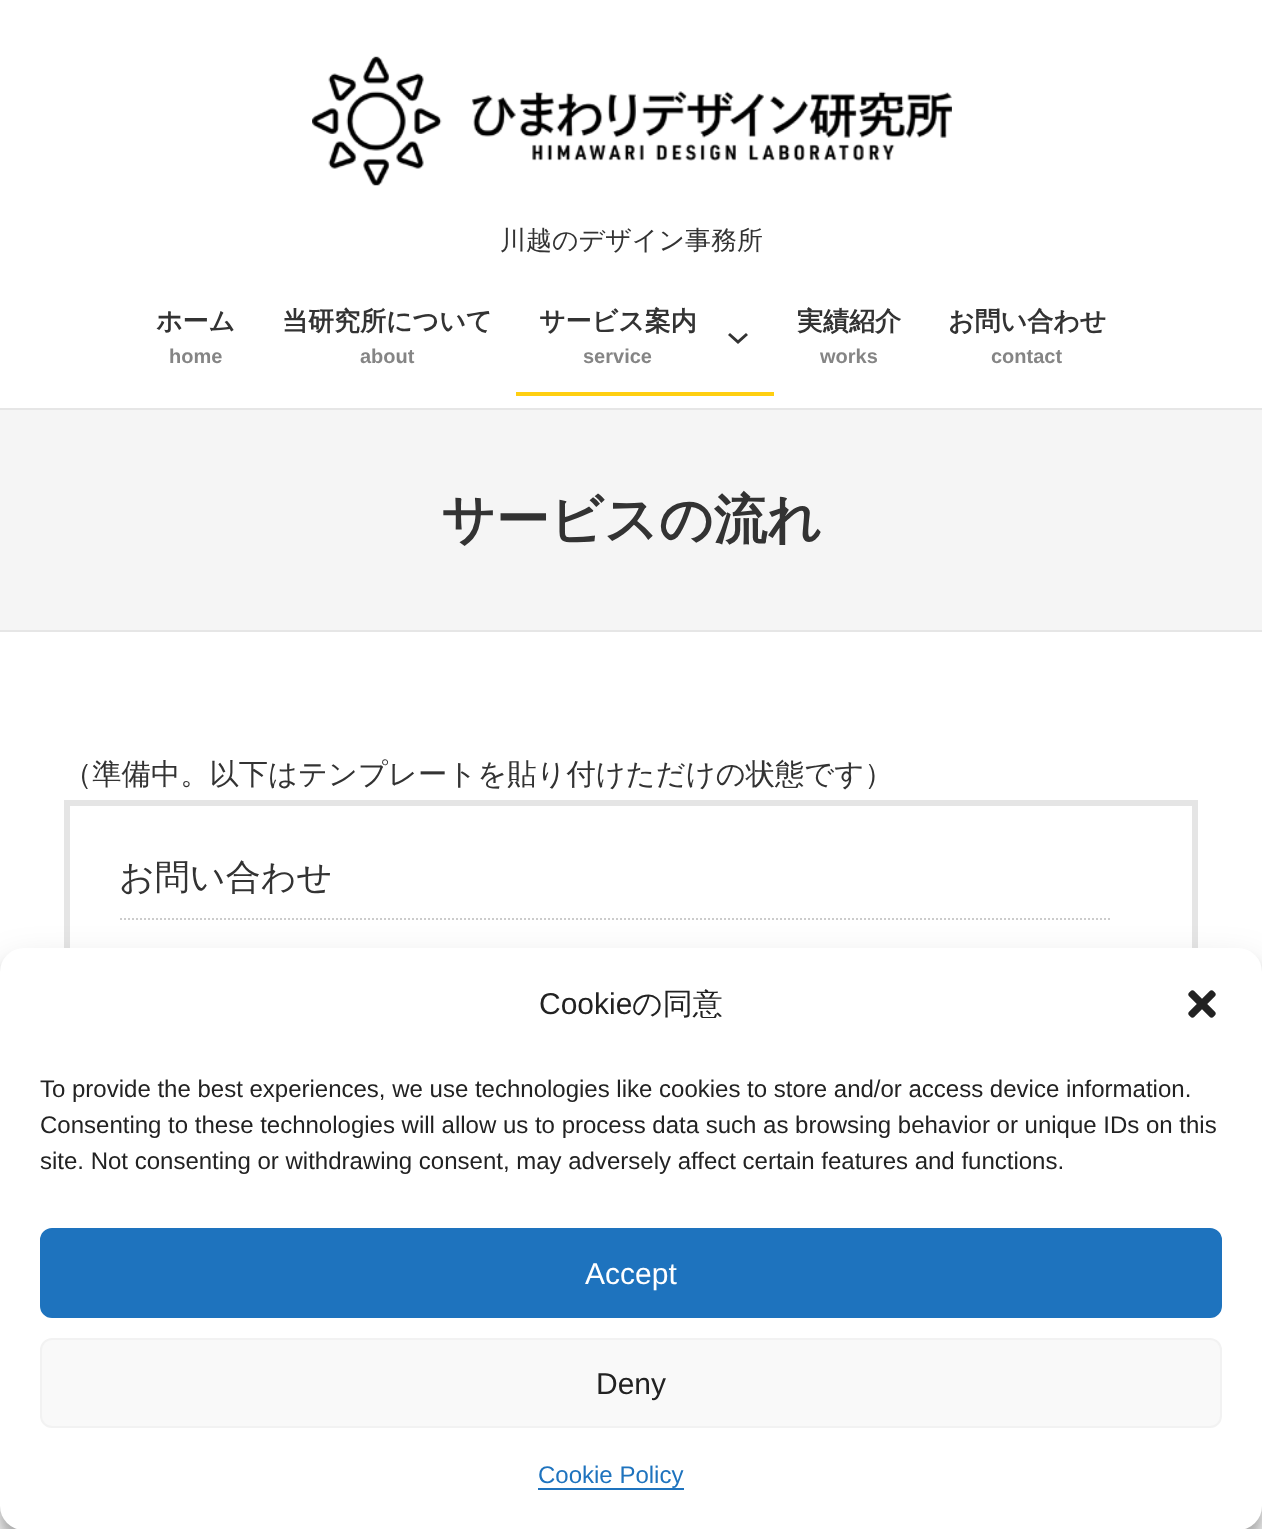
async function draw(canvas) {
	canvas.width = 1262;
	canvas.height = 1529;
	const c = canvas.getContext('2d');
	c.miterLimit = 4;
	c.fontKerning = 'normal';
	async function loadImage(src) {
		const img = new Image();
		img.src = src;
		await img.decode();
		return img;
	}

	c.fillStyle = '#fff';
	c.fillRect(0, 0, 1262, 1529);
	c.fillStyle = '#e6e6e6';
	c.fillRect(0, 408, 1262, 2);
	c.drawImage(await loadImage('img1.png'), 312, 56, 640, 130);
	c.font = '500 26px WenQuanYi Zen Hei';
	c.fillStyle = '#333';
	c.fillText('川越のデザイン事務所', 500, 249);
	c.font = 'bold 26px WenQuanYi Zen Hei';
	c.fillText('ホーム', 156, 330);
	c.font = 'bold 20px Liberation Sans';
	c.fillStyle = '#858585';
	c.fillText('home', 169, 363);
	c.font = 'bold 26px WenQuanYi Zen Hei';
	c.fillStyle = '#333';
	c.fillText('当研究所について', 282, 330);
	c.font = 'bold 20px Liberation Sans';
	c.fillStyle = '#858585';
	c.fillText('about', 360, 363);
	c.font = 'bold 26px WenQuanYi Zen Hei';
	c.fillStyle = '#333';
	c.fillText('サービス案内', 539, 330);
	c.font = 'bold 20px Liberation Sans';
	c.fillStyle = '#858585';
	c.fillText('service', 583, 363);
	c.fillStyle = '#ffcf11';
	c.fillRect(516, 392, 258, 4);
	c.beginPath();
	c.moveTo(729, 334);
	c.lineTo(738, 342);
	c.lineTo(747, 334);
	c.strokeStyle = '#333';
	c.lineWidth = 3;
	c.stroke();
	c.font = 'bold 26px WenQuanYi Zen Hei';
	c.fillStyle = '#333';
	c.fillText('実績紹介', 797, 330);
	c.font = 'bold 20px Liberation Sans';
	c.fillStyle = '#858585';
	c.fillText('works', 820, 363);
	c.font = 'bold 26px WenQuanYi Zen Hei';
	c.fillStyle = '#333';
	c.fillText('お問い合わせ', 948, 330);
	c.font = 'bold 20px Liberation Sans';
	c.fillStyle = '#858585';
	c.fillText('contact', 991, 363);
	c.fillStyle = '#f5f5f5';
	c.fillRect(0, 410, 1262, 220);
	c.font = 'bold 53.5px WenQuanYi Zen Hei';
	c.fillStyle = '#333';
	c.fillText('サービスの流れ', 441, 538);
	c.fillStyle = '#e6e6e6';
	c.fillRect(0, 630, 1262, 2);
	c.font = '500 29.3px WenQuanYi Zen Hei';
	c.fillStyle = '#333';
	c.fillText('（準備中。以下はテンプレートを貼り付けただけの状態です）', 63, 784);
	c.strokeStyle = '#e5e5e5';
	c.lineWidth = 6;
	c.strokeRect(67, 803, 1128, 232);
	c.beginPath();
	c.moveTo(120, 919);
	c.lineTo(1112, 919);
	c.strokeStyle = '#ccc';
	c.lineWidth = 2;
	c.setLineDash([2, 2]);
	c.stroke();
	c.font = '500 35px WenQuanYi Zen Hei';
	c.fillText('お問い合わせ', 119, 889);
	c.fillStyle = '#0000003b';
	c.filter = 'blur(6px)';
	c.beginPath();
	c.roundRect(0, 960, 1262, 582, 24);
	c.fill();
	c.filter = 'none';
	c.fillStyle = '#00000030';
	c.filter = 'blur(20px)';
	c.beginPath();
	c.roundRect(0, 968, 1262, 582, 24);
	c.fill();
	c.filter = 'none';
	c.fillStyle = '#fff';
	c.beginPath();
	c.roundRect(0, 948, 1262, 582, 24);
	c.fill();
	c.font = '30px Liberation Sans';
	c.fillStyle = '#222';
	c.fillText('Cookie', 539, 1014);
	c.font = '500 30px WenQuanYi Zen Hei';
	c.fillText('の同意', 632, 1014);
	c.drawImage(await loadImage('img2.png'), 1188, 990, 28, 28);
	c.font = '24px Liberation Sans';
	for (const [text, x, y] of [
		['To provide the best experiences, we use technologies like cookies to store and/or access device information.', 40, 1097],
		['Consenting to these technologies will allow us to process data such as browsing behavior or unique IDs on this', 40, 1133],
		['site. Not consenting or withdrawing consent, may adversely affect certain features and functions.', 40, 1169],
	]) {
		c.fillText(text, x, y);
	}
	c.fillStyle = '#1e73be';
	c.beginPath();
	c.roundRect(41, 1229, 1180, 88, 11);
	c.fill();
	c.strokeStyle = '#1e73be';
	c.setLineDash([]);
	c.stroke();
	c.font = '30px Liberation Sans';
	c.fillStyle = '#fff';
	c.fillText('Accept', 585, 1284);
	c.fillStyle = '#f9f9f9';
	c.beginPath();
	c.roundRect(41, 1339, 1180, 88, 11);
	c.fill();
	c.strokeStyle = '#f2f2f2';
	c.stroke();
	c.fillStyle = '#222';
	c.fillText('Deny', 596, 1394);
	c.font = '24px Liberation Sans';
	c.fillStyle = '#1e73be';
	c.fillText('Cookie Policy', 538, 1483);
	c.fillRect(538, 1488, 146, 2);
}

draw(document.querySelector('canvas'));
